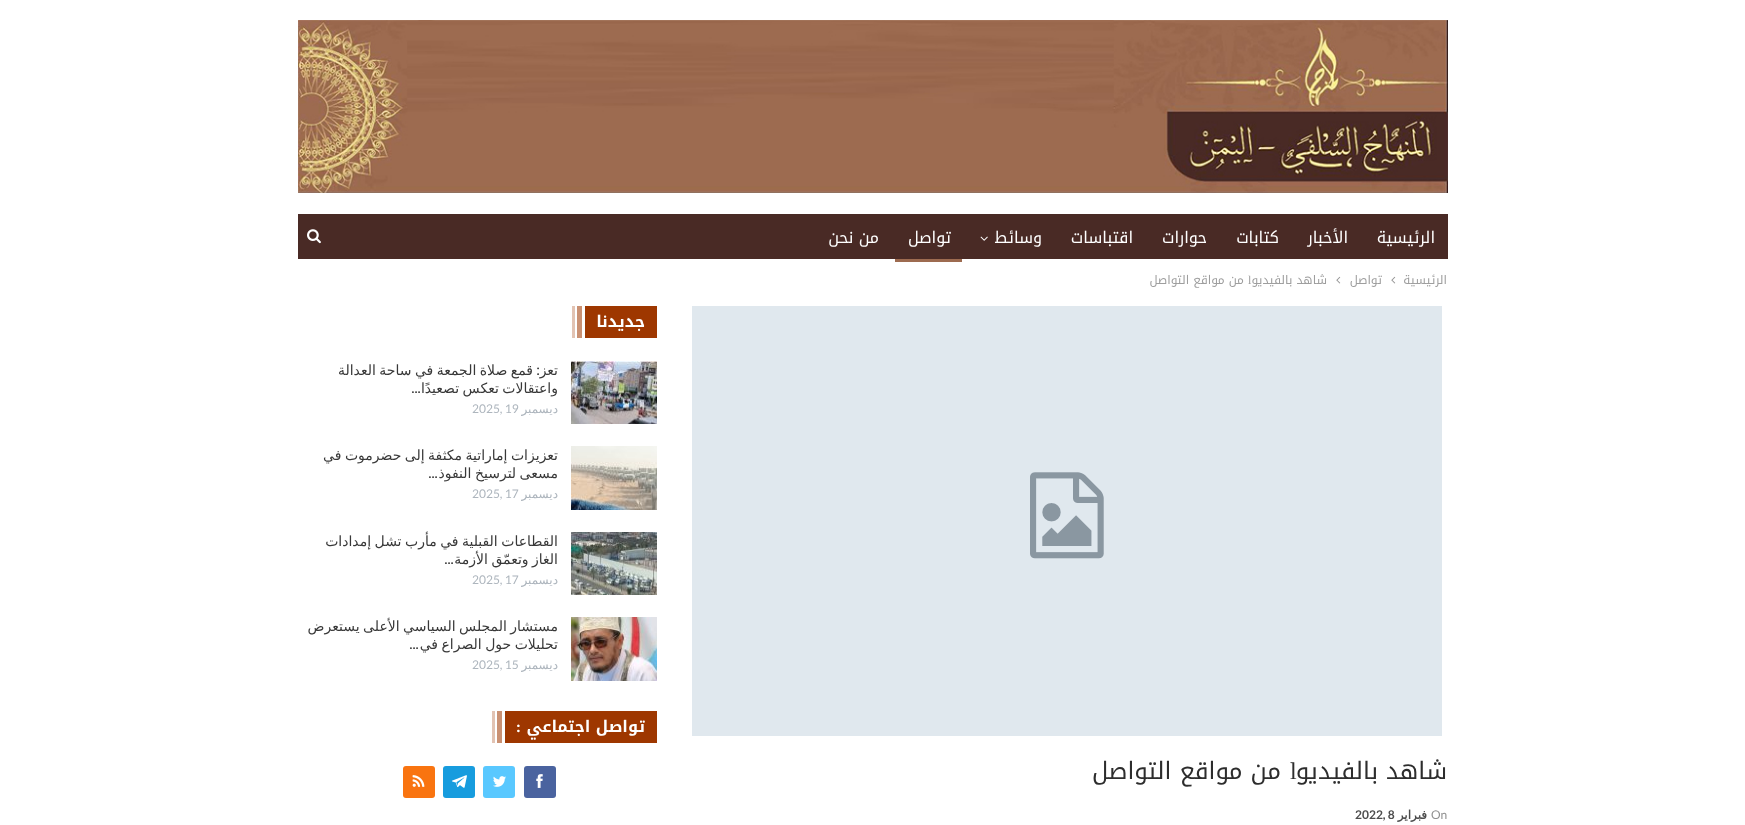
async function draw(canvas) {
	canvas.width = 1745;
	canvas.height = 825;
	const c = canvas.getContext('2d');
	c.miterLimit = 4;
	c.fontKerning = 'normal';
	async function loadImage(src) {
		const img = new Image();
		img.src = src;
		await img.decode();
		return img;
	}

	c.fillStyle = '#fff';
	c.fillRect(0, 0, 1745, 825);
	c.drawImage(await loadImage('img1.png'), 298, 20, 1150, 173);
	c.fillStyle = '#492a25';
	c.fillRect(298, 214, 1150, 45);
	c.direction = 'rtl';
	c.font = '16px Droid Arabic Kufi';
	c.fillStyle = '#fff';
	for (const [text, x, y] of [
		['الرئيسية', 1435, 243],
		['الأخبار', 1348, 243],
		['كتابات', 1279, 243],
		['حوارات', 1207, 243],
		['اقتباسات', 1133, 243],
		['وسائط', 1042, 243],
	]) {
		c.fillText(text, x, y);
	}
	c.drawImage(await loadImage('img2.png'), 980, 236, 8, 5);
	c.fillText('تواصل', 951, 243);
	c.fillStyle = '#9d6b50';
	c.fillRect(895, 259, 67, 3);
	c.fillStyle = '#fff';
	c.fillText('من نحن', 879, 243);
	c.drawImage(await loadImage('img3.png'), 307, 229, 14, 15);
	c.font = '12px Droid Arabic Kufi';
	c.fillStyle = '#9e9e9e';
	c.fillText('الرئيسية', 1447, 284);
	c.drawImage(await loadImage('img4.png'), 1391, 276, 5, 8);
	c.fillText('تواصل', 1382, 284);
	c.drawImage(await loadImage('img4.png'), 1336, 276, 5, 8);
	c.fillText('شاهد بالفيديو', 1327, 284);
	c.direction = 'ltr';
	c.font = '12px Liberation Serif';
	c.fillText('l', 1248, 284);
	c.direction = 'rtl';
	c.font = '12px Droid Arabic Kufi';
	c.fillText('من مواقع التواصل', 1244, 284);
	c.fillStyle = '#9e3700';
	c.fillRect(585, 306, 72, 32);
	c.font = 'bold 16px Droid Arabic Kufi';
	c.fillStyle = '#fff';
	c.fillText('جديدنا', 645, 327);
	c.fillStyle = '#ca9173';
	c.fillRect(577, 306, 5, 32);
	c.fillStyle = '#e2c3b3';
	c.fillRect(572, 306, 3, 32);
	c.drawImage(await loadImage('img5.png'), 571, 361, 86, 63);
	c.wordSpacing = '-1px';
	c.font = '14px DejaVu Sans';
	c.fillStyle = '#383838';
	c.fillText('قمع صلاة الجمعة في ساحة العدالة', 533, 375);
	c.wordSpacing = '0px';
	c.font = '500 14px Roboto';
	c.fillText(':', 540, 375);
	c.font = '14px DejaVu Sans';
	c.fillText('تعز', 558, 375);
	c.wordSpacing = '-1px';
	c.fillText('واعتقالات تعكس تصعيدًا', 558, 393);
	c.wordSpacing = '0px';
	c.font = '500 14px Roboto';
	c.fillText('…', 421, 393);
	c.font = '12px DejaVu Sans';
	c.fillStyle = '#adb5bd';
	c.fillText('ديسمبر', 558, 413);
	c.direction = 'ltr';
	c.font = '12px Lato';
	c.fillText('2025, 19', 472, 413);
	c.drawImage(await loadImage('img6.png'), 571, 446, 86, 64);
	c.wordSpacing = '-1px';
	c.direction = 'rtl';
	c.font = '14px DejaVu Sans';
	c.fillStyle = '#383838';
	c.fillText('تعزيزات إماراتية مكثفة إلى حضرموت في', 558, 460);
	c.fillText('مسعى لترسيخ النفوذ', 558, 478);
	c.wordSpacing = '0px';
	c.font = '500 14px Roboto';
	c.fillText('…', 438, 478);
	c.font = '12px DejaVu Sans';
	c.fillStyle = '#adb5bd';
	c.fillText('ديسمبر', 558, 498);
	c.direction = 'ltr';
	c.font = '12px Lato';
	c.fillText('2025, 17', 472, 498);
	c.drawImage(await loadImage('img7.png'), 571, 532, 86, 63);
	c.wordSpacing = '-1px';
	c.direction = 'rtl';
	c.font = '14px DejaVu Sans';
	c.fillStyle = '#383838';
	c.fillText('القطاعات القبلية في مأرب تشل إمدادات', 558, 546);
	c.fillText('الغاز وتعمّق الأزمة', 558, 564);
	c.wordSpacing = '0px';
	c.font = '500 14px Roboto';
	c.fillText('…', 454, 564);
	c.font = '12px DejaVu Sans';
	c.fillStyle = '#adb5bd';
	c.fillText('ديسمبر', 558, 584);
	c.direction = 'ltr';
	c.font = '12px Lato';
	c.fillText('2025, 17', 472, 584);
	c.drawImage(await loadImage('img8.png'), 571, 617, 86, 64);
	c.wordSpacing = '-1px';
	c.direction = 'rtl';
	c.font = '14px DejaVu Sans';
	c.fillStyle = '#383838';
	c.fillText('مستشار المجلس السياسي الأعلى يستعرض', 558, 631);
	c.fillText('تحليلات حول الصراع في', 558, 649);
	c.wordSpacing = '0px';
	c.font = '500 14px Roboto';
	c.fillText('…', 419, 649);
	c.font = '12px DejaVu Sans';
	c.fillStyle = '#adb5bd';
	c.fillText('ديسمبر', 558, 669);
	c.direction = 'ltr';
	c.font = '12px Lato';
	c.fillText('2025, 15', 472, 669);
	c.fillStyle = '#9e3700';
	c.fillRect(505, 711, 152, 32);
	c.direction = 'rtl';
	c.font = 'bold 16px Droid Arabic Kufi';
	c.fillStyle = '#fff';
	c.fillText('تواصل اجتماعي', 645, 732);
	c.font = 'bold 16px Liberation Serif';
	c.fillText(':', 521, 732);
	c.fillStyle = '#ca9173';
	c.fillRect(497, 711, 5, 32);
	c.fillStyle = '#e2c3b3';
	c.fillRect(492, 711, 3, 32);
	c.fillStyle = '#4a639f';
	c.beginPath();
	c.roundRect(524, 766, 32, 32, 3);
	c.fill();
	c.drawImage(await loadImage('img9.png'), 536, 774, 7, 14);
	c.fillStyle = '#59c8ff';
	c.beginPath();
	c.roundRect(483, 766, 32, 32, 3);
	c.fill();
	c.drawImage(await loadImage('img10.png'), 493, 776, 13, 11);
	c.fillStyle = '#179cde';
	c.beginPath();
	c.roundRect(443, 766, 32, 32, 3);
	c.fill();
	c.drawImage(await loadImage('img11.png'), 452, 775, 15, 13);
	c.fillStyle = '#f97410';
	c.beginPath();
	c.roundRect(403, 766, 32, 32, 3);
	c.fill();
	c.drawImage(await loadImage('img12.png'), 412, 775, 13, 12);
	c.drawImage(await loadImage('img13.png'), 692, 306, 750, 430);
	c.font = '24px Droid Arabic Kufi';
	c.fillStyle = '#2d2d2d';
	c.fillText('شاهد بالفيديو', 1447, 779);
	c.direction = 'ltr';
	c.font = '24px Liberation Serif';
	c.fillText('l', 1290, 779);
	c.direction = 'rtl';
	c.font = '24px Droid Arabic Kufi';
	c.fillText('من مواقع التواصل', 1281, 779);
	c.direction = 'ltr';
	c.font = '12px Lato';
	c.fillStyle = '#8f8f8f';
	c.fillText('On', 1431, 819);
	c.direction = 'rtl';
	c.font = 'bold 12px DejaVu Sans';
	c.fillStyle = '#4d4d4d';
	c.fillText('فبراير', 1427, 819);
	c.direction = 'ltr';
	c.font = 'bold 12px Lato';
	c.fillText('2022, 8', 1355, 819);
}

draw(document.querySelector('canvas'));
